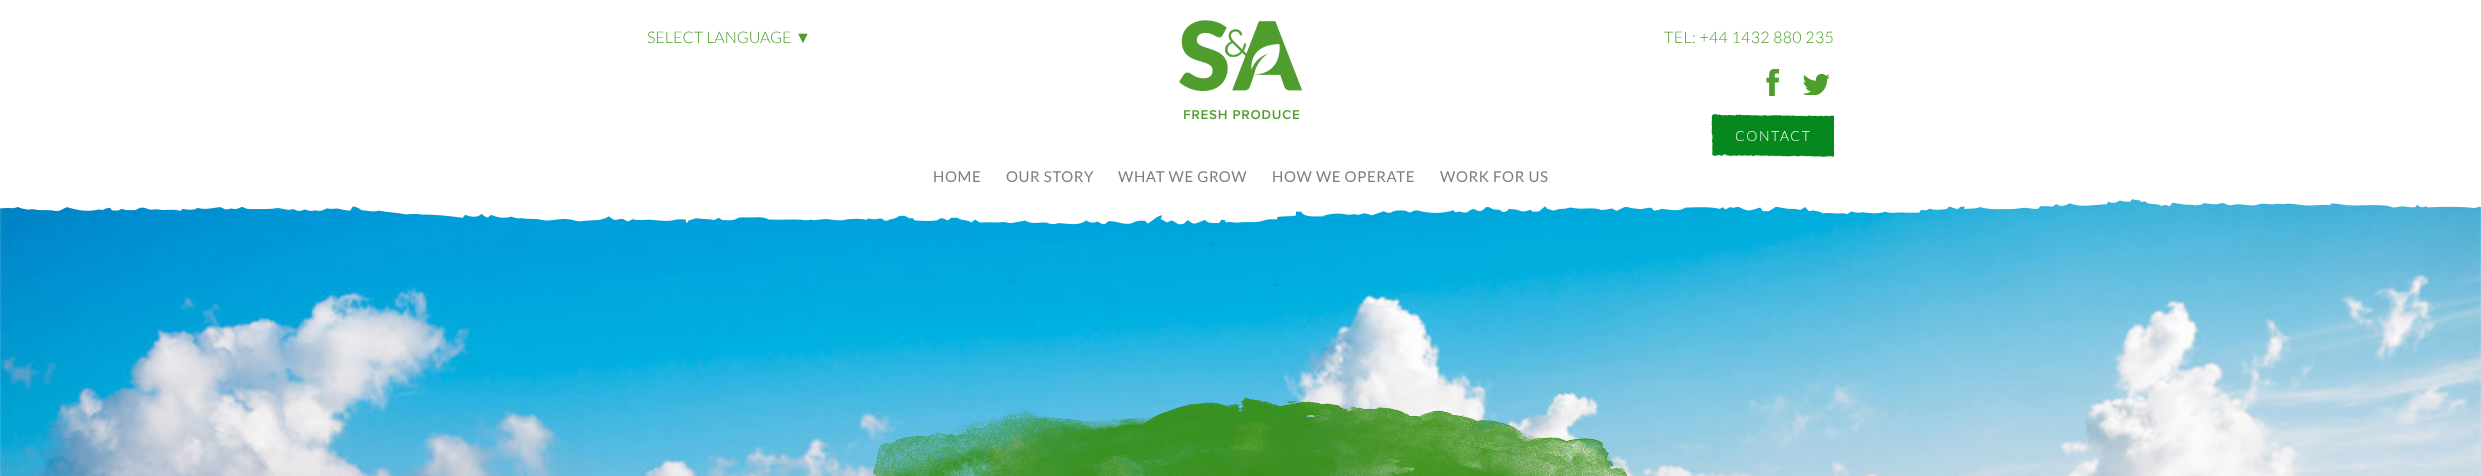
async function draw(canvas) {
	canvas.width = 2481;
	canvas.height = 476;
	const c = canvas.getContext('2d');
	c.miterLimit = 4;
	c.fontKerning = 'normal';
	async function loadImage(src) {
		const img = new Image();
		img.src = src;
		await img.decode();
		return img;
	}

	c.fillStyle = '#fff';
	c.fillRect(0, 0, 2481, 476);
	c.font = '300 16px Lato';
	c.fillStyle = '#4c9d2a';
	c.fillText('SELECT LANGUAGE', 647, 43);
	c.font = '16px Liberation Sans';
	c.fillText('▼', 795, 43);
	c.drawImage(await loadImage('img1.png'), 1179, 20, 124, 100);
	c.letterSpacing = '0.3px';
	c.font = '300 16px Lato';
	c.fillText('TEL: +44 1432 880 235', 1664, 43);
	c.drawImage(await loadImage('img2.png'), 1766, 69, 14, 27);
	c.drawImage(await loadImage('img3.png'), 1803, 74, 27, 21);
	c.drawImage(await loadImage('img4.png'), 1711, 114, 123, 44);
	c.letterSpacing = '1.5px';
	c.font = '300 14px Lato';
	c.fillStyle = '#fff';
	c.fillText('CONTACT', 1735, 141);
	c.letterSpacing = '0.6px';
	c.font = '15px Lato';
	c.fillStyle = '#7e7e7e';
	for (const [text, x, y] of [
		['HOME', 933, 182],
		['OUR STORY', 1006, 182],
		['WHAT WE GROW', 1118, 182],
		['HOW WE OPERATE', 1272, 182],
		['WORK FOR US', 1440, 182],
	]) {
		c.fillText(text, x, y);
	}
	c.drawImage(await loadImage('img6.png'), 0, 199, 2481, 277);
	c.drawImage(await loadImage('img5.png'), 0, 199, 2481, 26);
	c.drawImage(await loadImage('img7.png'), 873, 385, 754, 91);
}

draw(document.querySelector('canvas'));
